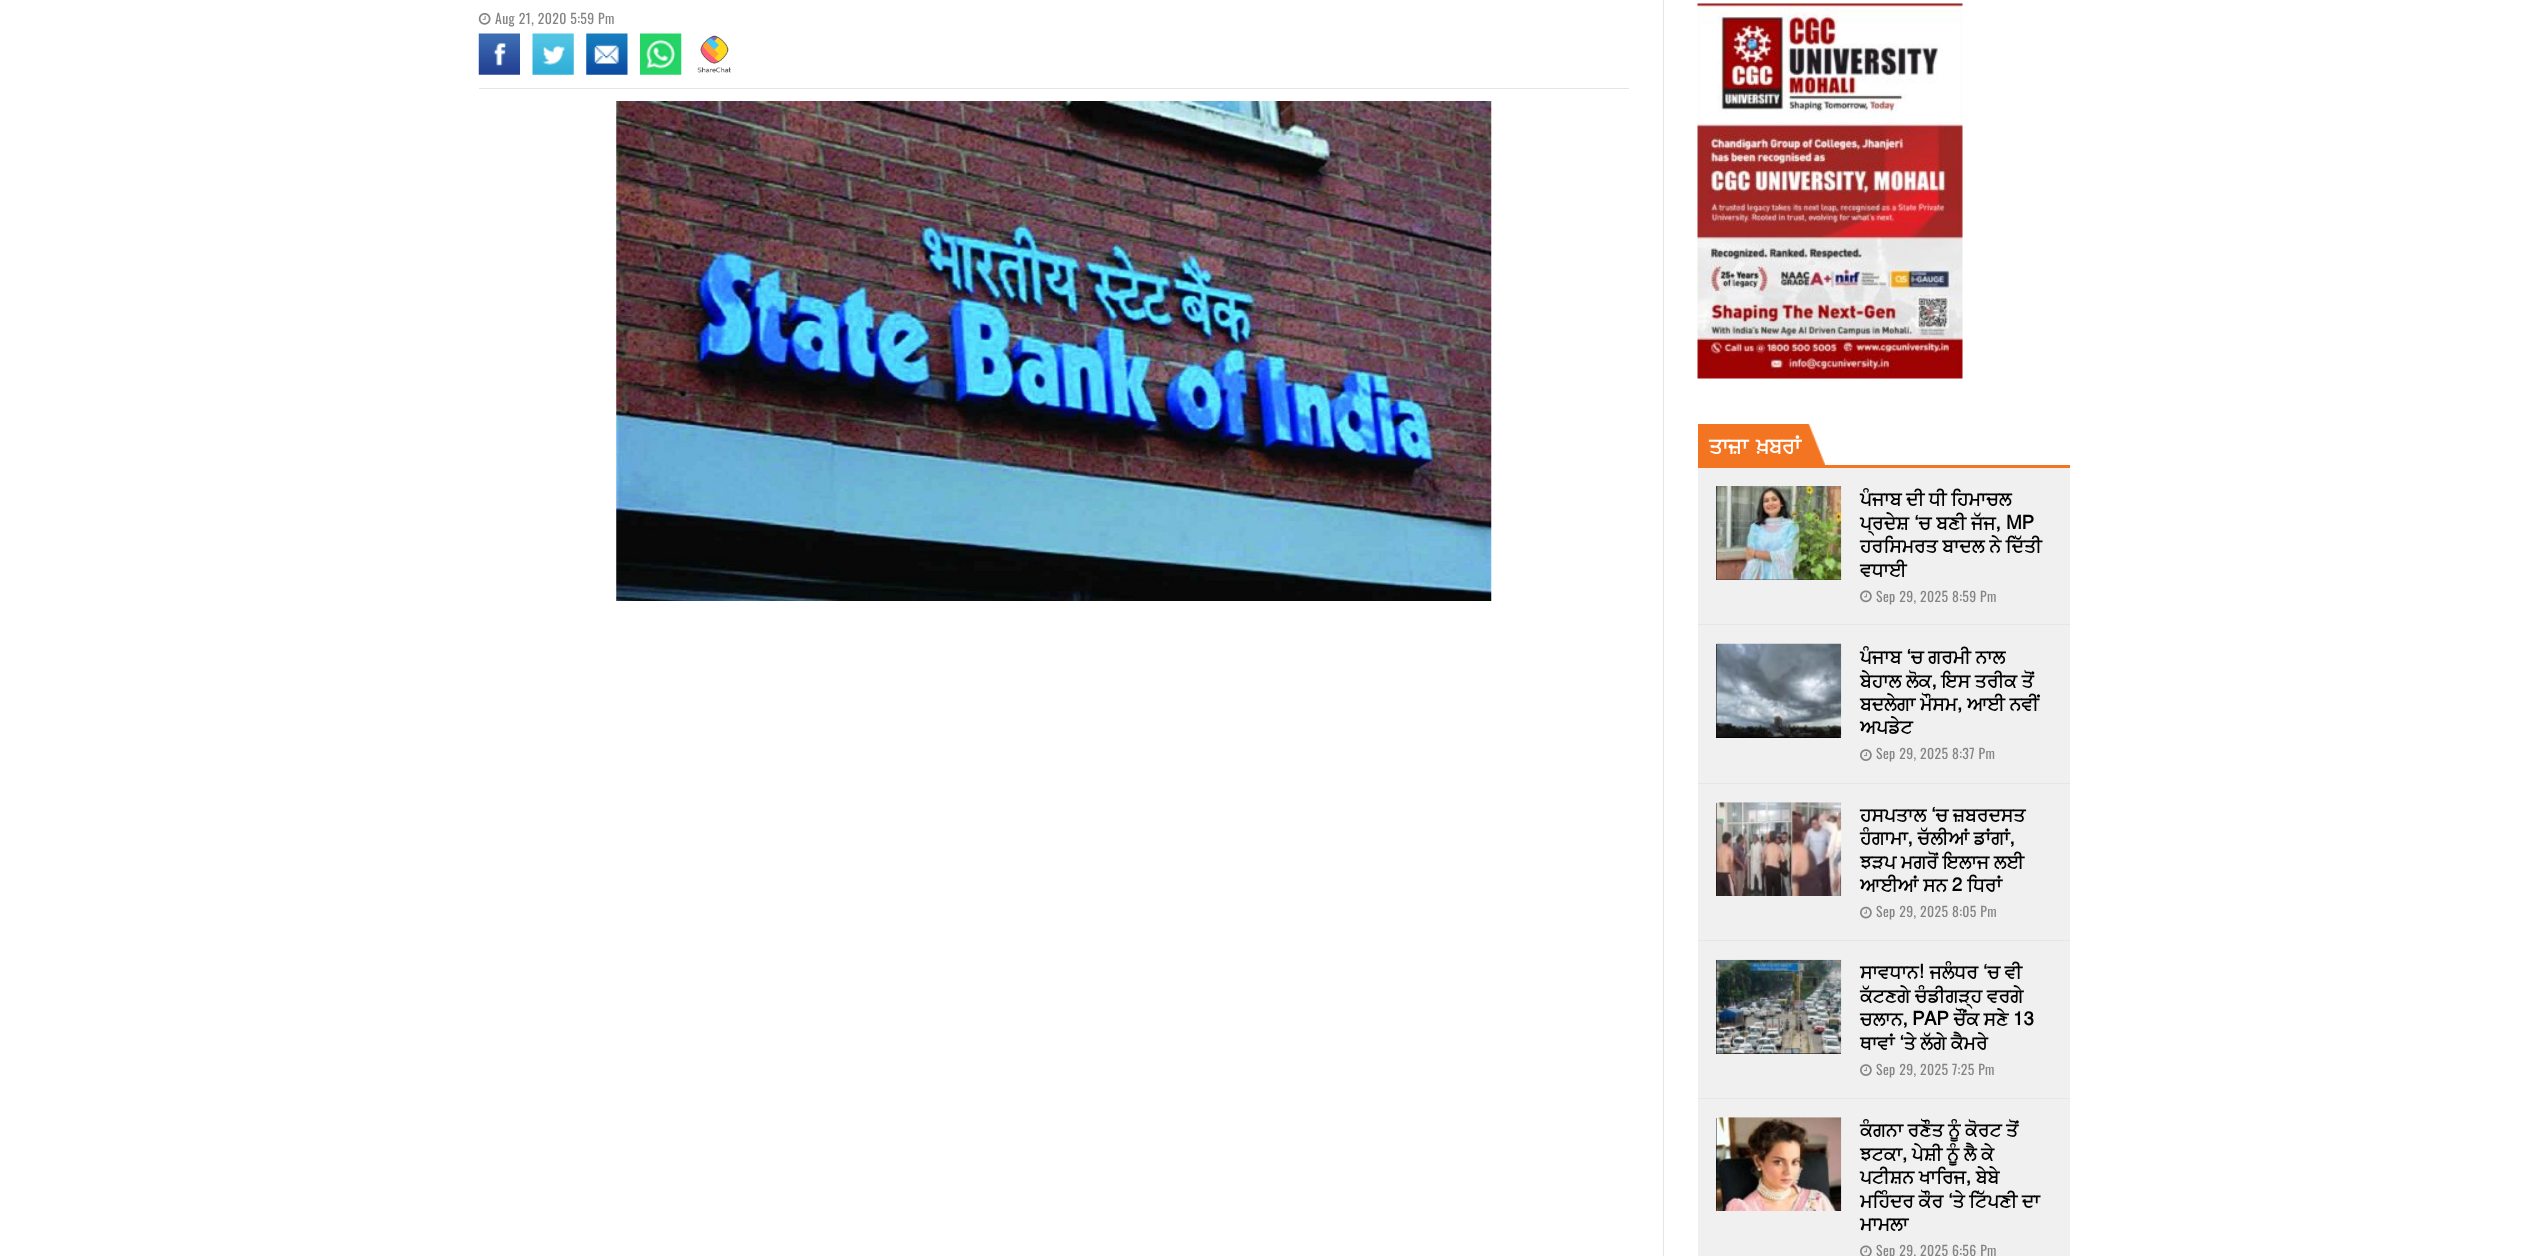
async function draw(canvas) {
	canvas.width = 2548;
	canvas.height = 1256;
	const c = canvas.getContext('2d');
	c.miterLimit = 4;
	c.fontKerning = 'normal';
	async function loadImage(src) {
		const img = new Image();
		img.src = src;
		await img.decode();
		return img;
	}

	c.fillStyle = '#fff';
	c.fillRect(0, 0, 2548, 1256);
	c.fillStyle = '#e6e6e6';
	c.fillRect(1663, 0, 1, 1256);
	c.fillStyle = '#e5e5e5';
	c.fillRect(479, 88, 1150, 1);
	c.drawImage(await loadImage('img1.png'), 478, 13, 13, 12);
	c.letterSpacing = '0.4px';
	c.font = '13.75px Oswald';
	c.fillStyle = '#848484';
	c.fillText('Aug 21, 2020 5:59 Pm', 495, 24);
	c.drawImage(await loadImage('img2.png'), 478, 33, 42, 42);
	c.drawImage(await loadImage('img3.png'), 532, 33, 42, 42);
	c.drawImage(await loadImage('img4.png'), 586, 33, 42, 42);
	c.drawImage(await loadImage('img5.png'), 640, 33, 42, 42);
	c.drawImage(await loadImage('img6.png'), 697, 35, 34, 38);
	c.drawImage(await loadImage('img7.png'), 616, 101, 876, 500);
	c.drawImage(await loadImage('img8.png'), 1697, 3, 266, 376);
	c.fillStyle = '#f37521';
	c.fillRect(1698, 465, 372, 3);
	c.fillRect(1698, 424, 127, 41);
	c.drawImage(await loadImage('img9.png'), 1808, 424, 17, 41);
	c.letterSpacing = '-0.6px';
	c.wordSpacing = '4px';
	c.font = 'bold 21.25px FreeSans';
	c.fillStyle = '#fff';
	c.fillText('ਤਾਜ਼ਾ ਖ਼ਬਰਾਂ', 1709, 453);
	for (const [x, y, w, h, color] of [
		[1698, 468, 372, 788, '#f0f0f0'],
		[1698, 624, 372, 1, '#e6e6e6'],
		[1716, 486, 125, 94, '#000'],
	]) {
		c.fillStyle = color;
		c.fillRect(x, y, w, h);
	}
	c.drawImage(await loadImage('img10.png'), 1716, 486, 126, 94);
	c.letterSpacing = '0px';
	c.wordSpacing = '0px';
	c.font = 'bold 18.75px FreeSans';
	c.fillText('ਪੰਜਾਬ ਦੀ ਧੀ ਹਿਮਾਚਲ', 1860, 505);
	c.wordSpacing = '0.5px';
	c.fillText('ਪ੍ਰਦੇਸ਼ ‘ਚ ਬਣੀ ਜੱਜ, MP', 1860, 529);
	c.wordSpacing = '0px';
	c.fillText('ਹਰਸਿਮਰਤ ਬਾਦਲ ਨੇ ਦਿੱਤੀ', 1860, 552);
	c.fillText('ਵਧਾਈ', 1860, 576);
	c.drawImage(await loadImage('img11.png'), 1860, 590, 12, 13);
	c.letterSpacing = '0.4px';
	c.font = '13.75px Oswald';
	c.fillStyle = '#848484';
	c.fillText('Sep 29, 2025 8:59 Pm', 1876, 602);
	c.fillStyle = '#e6e6e6';
	c.fillRect(1698, 783, 372, 1);
	c.fillStyle = '#000';
	c.fillRect(1716, 644, 125, 94);
	c.drawImage(await loadImage('img12.png'), 1716, 643, 126, 95);
	c.letterSpacing = '0px';
	c.font = 'bold 18.75px FreeSans';
	for (const [text, x, y] of [
		['ਪੰਜਾਬ ‘ਚ ਗਰਮੀ ਨਾਲ', 1860, 663],
		['ਬੇਹਾਲ ਲੋਕ, ਇਸ ਤਰੀਕ ਤੋਂ', 1860, 687],
		['ਬਦਲੇਗਾ ਮੌਸਮ, ਆਈ ਨਵੀਂ', 1860, 710],
		['ਅਪਡੇਟ', 1860, 733],
	]) {
		c.fillText(text, x, y);
	}
	c.drawImage(await loadImage('img13.png'), 1860, 749, 12, 12);
	c.letterSpacing = '0.4px';
	c.font = '13.75px Oswald';
	c.fillStyle = '#848484';
	c.fillText('Sep 29, 2025 8:37 Pm', 1876, 759);
	c.fillStyle = '#e6e6e6';
	c.fillRect(1698, 940, 372, 1);
	c.fillStyle = '#000';
	c.fillRect(1716, 803, 1, 93);
	c.drawImage(await loadImage('img14.png'), 1716, 802, 126, 94);
	c.letterSpacing = '0px';
	c.font = 'bold 18.75px FreeSans';
	for (const [text, x, y] of [
		['ਹਸਪਤਾਲ ‘ਚ ਜ਼ਬਰਦਸਤ', 1860, 821],
		['ਹੰਗਾਮਾ, ਚੱਲੀਆਂ ਡਾਂਗਾਂ,', 1860, 844],
		['ਝੜਪ ਮਗਰੋਂ ਇਲਾਜ ਲਈ', 1860, 868],
		['ਆਈਆਂ ਸਨ 2 ਧਿਰਾਂ', 1860, 891],
	]) {
		c.fillText(text, x, y);
	}
	c.drawImage(await loadImage('img15.png'), 1860, 906, 12, 13);
	c.letterSpacing = '0.4px';
	c.font = '13.75px Oswald';
	c.fillStyle = '#848484';
	c.fillText('Sep 29, 2025 8:05 Pm', 1876, 917);
	c.fillStyle = '#e6e6e6';
	c.fillRect(1698, 1098, 372, 1);
	c.fillStyle = '#000';
	c.fillRect(1716, 960, 125, 94);
	c.drawImage(await loadImage('img16.png'), 1716, 959, 126, 95);
	c.letterSpacing = '0px';
	c.font = 'bold 18.75px FreeSans';
	for (const [text, x, y] of [
		['ਸਾਵਧਾਨ! ਜਲੰਧਰ ‘ਚ ਵੀ', 1860, 978],
		['ਕੱਟਣਗੇ ਚੰਡੀਗੜ੍ਹ ਵਰਗੇ', 1860, 1002],
		['ਚਲਾਨ, PAP ਚੌਂਕ ਸਣੇ 13', 1860, 1025],
		['ਥਾਵਾਂ ‘ਤੇ ਲੱਗੇ ਕੈਮਰੇ', 1860, 1049],
	]) {
		c.fillText(text, x, y);
	}
	c.drawImage(await loadImage('img13.png'), 1860, 1064, 12, 12);
	c.letterSpacing = '0.4px';
	c.font = '13.75px Oswald';
	c.fillStyle = '#848484';
	c.fillText('Sep 29, 2025 7:25 Pm', 1876, 1075);
	c.fillStyle = '#000';
	c.fillRect(1716, 1118, 1, 93);
	c.drawImage(await loadImage('img17.png'), 1716, 1117, 126, 94);
	c.letterSpacing = '0px';
	c.font = 'bold 18.75px FreeSans';
	for (const [text, x, y] of [
		['ਕੰਗਨਾ ਰਣੌਤ ਨੂੰ ਕੋਰਟ ਤੋਂ', 1860, 1136],
		['ਝਟਕਾ, ਪੇਸ਼ੀ ਨੂੰ ਲੈ ਕੇ', 1860, 1160],
		['ਪਟੀਸ਼ਨ ਖਾਰਿਜ, ਬੇਬੇ', 1860, 1183],
		['ਮਹਿੰਦਰ ਕੌਰ ‘ਤੇ ਟਿੱਪਣੀ ਦਾ', 1860, 1207],
		['ਮਾਮਲਾ', 1860, 1230],
	]) {
		c.fillText(text, x, y);
	}
	c.drawImage(await loadImage('img18.png'), 1860, 1245, 12, 11);
	c.letterSpacing = '0.4px';
	c.font = '13.75px Oswald';
	c.fillStyle = '#848484';
	c.fillText('Sep 29, 2025 6:56 Pm', 1876, 1256);
}

draw(document.querySelector('canvas'));
